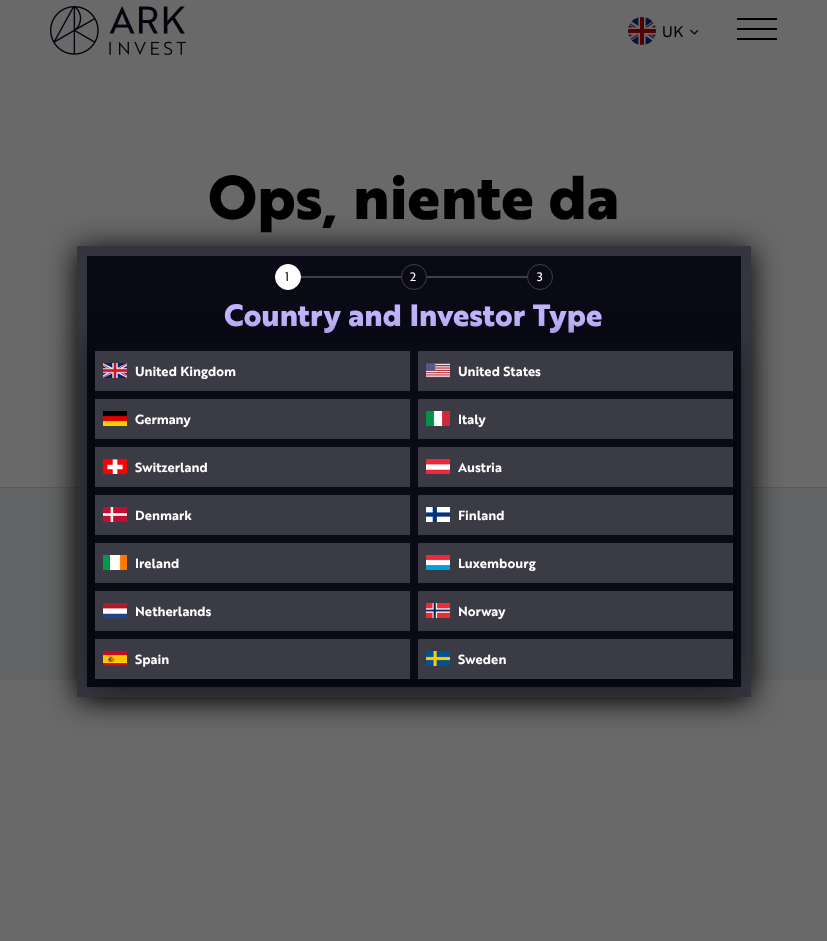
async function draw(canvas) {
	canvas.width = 827;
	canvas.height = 941;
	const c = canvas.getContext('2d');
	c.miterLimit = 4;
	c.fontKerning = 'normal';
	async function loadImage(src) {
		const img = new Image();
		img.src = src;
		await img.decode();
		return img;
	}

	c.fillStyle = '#696969';
	c.fillRect(0, 0, 827, 941);
	c.drawImage(await loadImage('img1.png'), 50, 6, 136, 49);
	c.drawImage(await loadImage('img2.png'), 628, 17, 28, 28);
	c.font = '15px "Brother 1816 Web"';
	c.fillStyle = '#000';
	c.fillText('UK', 662, 37);
	c.drawImage(await loadImage('img3.png'), 690, 30, 8, 5);
	for (const [x, y, w, h, color] of [
		[737, 18, 40, 2, '#000'],
		[737, 28, 40, 2, '#000'],
		[737, 38, 40, 2, '#000'],
	]) {
		c.fillStyle = color;
		c.fillRect(x, y, w, h);
	}
	c.font = '800 60px "Brother 1816 Web"';
	c.fillText('Ops, niente da', 208, 219);
	c.fillStyle = '#636465';
	c.fillRect(0, 488, 827, 192);
	c.fillStyle = '#5b5b5b';
	c.fillRect(0, 487, 827, 1);
	c.fillStyle = '#000';
	c.filter = 'blur(15px)';
	c.beginPath();
	c.rect(77, 249, 674, 451);
	c.fill();
	c.filter = 'none';
	c.fillStyle = '#0a0a17';
	c.beginPath();
	c.rect(82, 251, 664, 441);
	c.fill();
	c.strokeStyle = '#35353f';
	c.lineWidth = 10;
	c.stroke();
	c.fillStyle = '#404040';
	c.fillRect(275, 276, 127, 2);
	c.fillStyle = '#fff';
	c.beginPath();
	c.arc(288, 277, 12.5, 0, 2 * Math.PI);
	c.fill();
	c.strokeStyle = '#fff';
	c.lineWidth = 1;
	c.stroke();
	c.font = '12px "Brother 1816 Web"';
	c.fillStyle = '#000';
	c.fillText('1', 285, 281);
	c.fillStyle = '#404040';
	c.fillRect(426, 276, 127, 2);
	c.fillStyle = '#0a0a17';
	c.beginPath();
	c.arc(414, 277, 12.5, 0, 2 * Math.PI);
	c.fill();
	c.strokeStyle = '#404040';
	c.stroke();
	c.fillStyle = '#fff';
	c.fillText('2', 410, 281);
	c.fillStyle = '#0a0a17';
	c.beginPath();
	c.arc(540, 277, 12.5, 0, 2 * Math.PI);
	c.fill();
	c.stroke();
	c.fillStyle = '#fff';
	c.fillText('3', 537, 281);
	c.font = '800 30px "Brother 1816 Web"';
	c.fillStyle = '#c0b4fd';
	c.fillText('Country and Investor Type', 224, 326);
	c.save();
	c.beginPath();
	c.moveTo(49, 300);
	c.lineTo(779, 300);
	c.lineTo(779, 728);
	c.lineTo(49, 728);
	c.closePath();
	c.moveTo(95, 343);
	c.lineTo(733, 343);
	c.lineTo(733, 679);
	c.lineTo(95, 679);
	c.closePath();
	c.clip('evenodd');
	c.fillStyle = '#000000b3';
	c.filter = 'blur(15px)';
	c.beginPath();
	c.rect(95, 346, 638, 336);
	c.fill();
	c.filter = 'none';
	c.restore();
	c.fillStyle = '#3b3b45';
	c.fillRect(95, 351, 315, 40);
	c.drawImage(await loadImage('img4.png'), 103, 363, 24, 15);
	c.font = 'bold 13px "Brother 1816 Web"';
	c.fillStyle = '#fff';
	c.fillText('United Kingdom', 135, 376);
	c.fillStyle = '#3b3b45';
	c.fillRect(418, 351, 315, 40);
	c.drawImage(await loadImage('img5.png'), 426, 363, 24, 15);
	c.fillStyle = '#fff';
	c.fillText('United States', 458, 376);
	c.fillStyle = '#3b3b45';
	c.fillRect(95, 399, 315, 40);
	c.drawImage(await loadImage('img6.png'), 103, 411, 24, 15);
	c.fillStyle = '#fff';
	c.fillText('Germany', 135, 424);
	c.fillStyle = '#3b3b45';
	c.fillRect(418, 399, 315, 40);
	c.drawImage(await loadImage('img7.png'), 426, 411, 24, 15);
	c.fillStyle = '#fff';
	c.fillText('Italy', 458, 424);
	c.fillStyle = '#3b3b45';
	c.fillRect(95, 447, 315, 40);
	c.drawImage(await loadImage('img8.png'), 103, 459, 24, 15);
	c.fillStyle = '#fff';
	c.fillText('Switzerland', 135, 472);
	c.fillStyle = '#3b3b45';
	c.fillRect(418, 447, 315, 40);
	c.drawImage(await loadImage('img9.png'), 426, 459, 24, 15);
	c.fillStyle = '#fff';
	c.fillText('Austria', 458, 472);
	c.fillStyle = '#3b3b45';
	c.fillRect(95, 495, 315, 40);
	c.drawImage(await loadImage('img10.png'), 103, 507, 24, 15);
	c.fillStyle = '#fff';
	c.fillText('Denmark', 135, 520);
	c.fillStyle = '#3b3b45';
	c.fillRect(418, 495, 315, 40);
	c.drawImage(await loadImage('img11.png'), 426, 507, 24, 15);
	c.fillStyle = '#fff';
	c.fillText('Finland', 458, 520);
	c.fillStyle = '#3b3b45';
	c.fillRect(95, 543, 315, 40);
	c.drawImage(await loadImage('img12.png'), 103, 555, 24, 15);
	c.fillStyle = '#fff';
	c.fillText('Ireland', 135, 568);
	c.fillStyle = '#3b3b45';
	c.fillRect(418, 543, 315, 40);
	c.drawImage(await loadImage('img13.png'), 426, 555, 24, 15);
	c.fillStyle = '#fff';
	c.fillText('Luxembourg', 458, 568);
	c.fillStyle = '#3b3b45';
	c.fillRect(95, 591, 315, 40);
	c.drawImage(await loadImage('img14.png'), 103, 603, 24, 15);
	c.fillStyle = '#fff';
	c.fillText('Netherlands', 135, 616);
	c.fillStyle = '#3b3b45';
	c.fillRect(418, 591, 315, 40);
	c.drawImage(await loadImage('img15.png'), 426, 603, 24, 15);
	c.fillStyle = '#fff';
	c.fillText('Norway', 458, 616);
	c.fillStyle = '#3b3b45';
	c.fillRect(95, 639, 315, 40);
	c.drawImage(await loadImage('img16.png'), 103, 651, 24, 15);
	c.fillStyle = '#fff';
	c.fillText('Spain', 135, 664);
	c.fillStyle = '#3b3b45';
	c.fillRect(418, 639, 315, 40);
	c.drawImage(await loadImage('img17.png'), 426, 651, 24, 15);
	c.fillStyle = '#fff';
	c.fillText('Sweden', 458, 664);
}

draw(document.querySelector('canvas'));
